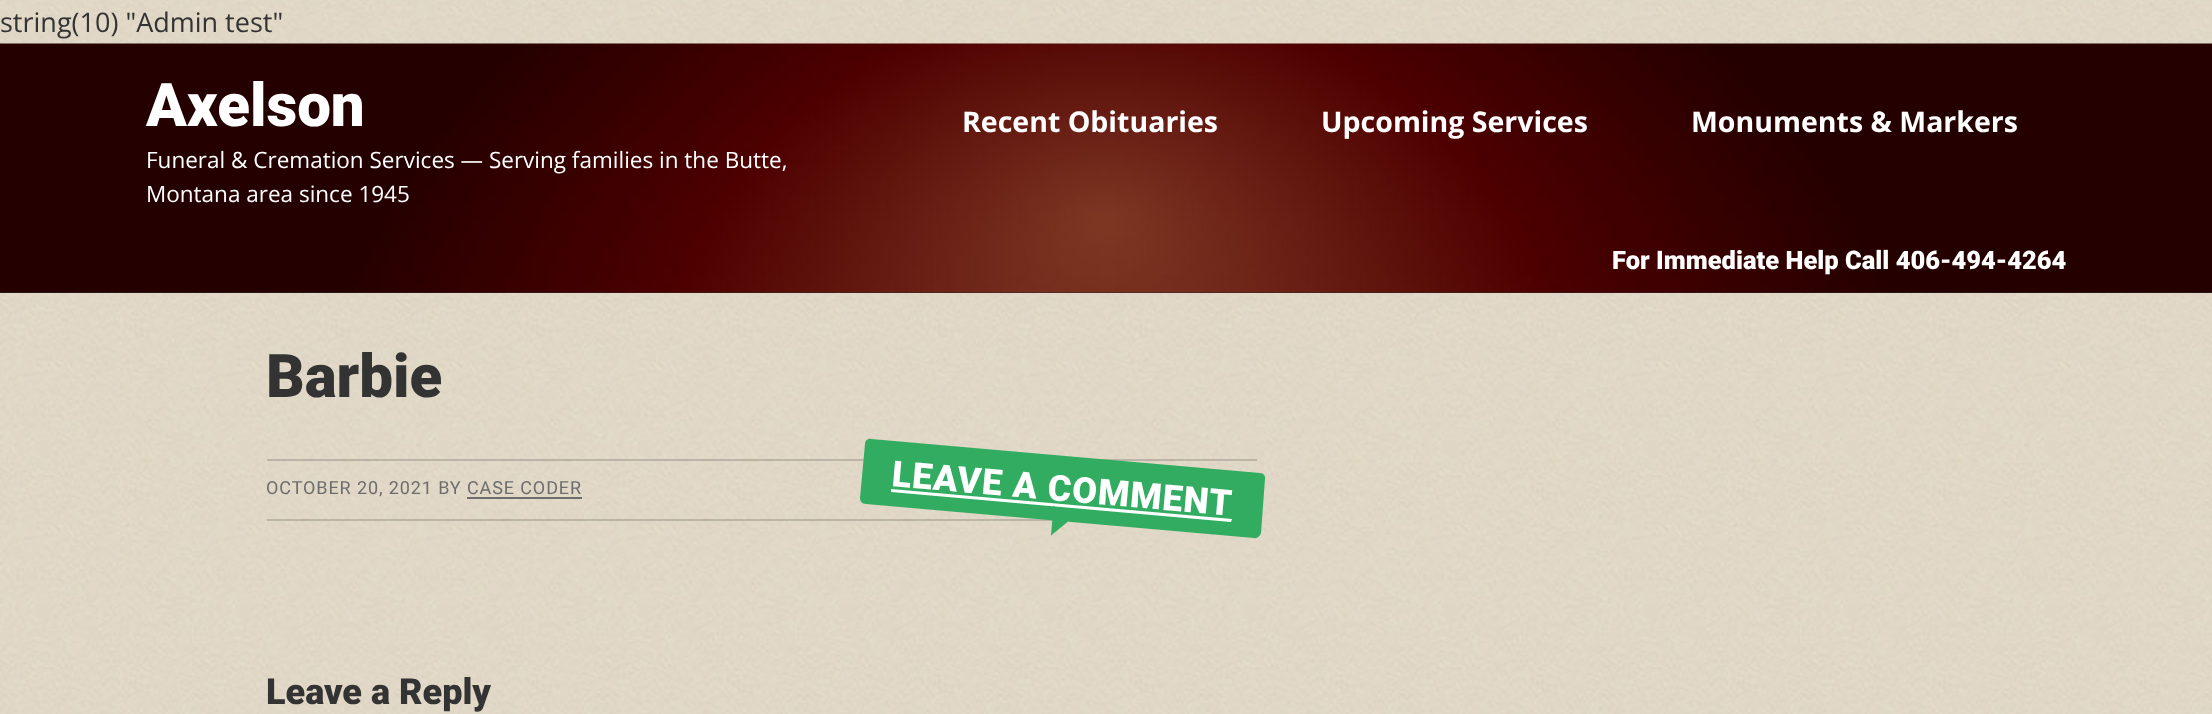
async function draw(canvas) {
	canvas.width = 2212;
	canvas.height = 714;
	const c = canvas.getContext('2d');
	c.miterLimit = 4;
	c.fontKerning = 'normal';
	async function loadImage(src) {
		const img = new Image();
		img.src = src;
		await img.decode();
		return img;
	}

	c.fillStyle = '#fff';
	c.fillRect(0, 0, 2212, 714);
	c.drawImage(await loadImage('img1.png'), 0, 0, 2212, 714);
	c.font = '27px Open Sans';
	c.fillStyle = '#333';
	c.fillText('string(10) "Admin test"', 0, 32);
	c.fillStyle = '#2d2c2a';
	c.fillRect(0, 292, 2212, 1);
	c.drawImage(await loadImage('img2.png'), 0, 43, 2212, 250);
	c.font = '900 60px Roboto';
	c.fillStyle = '#fff';
	c.fillText('Axelson', 146, 126);
	c.font = '22.5px Open Sans';
	c.fillText('Funeral & Cremation Services — Serving families in the Butte,', 146, 168);
	c.fillText('Montana area since 1945', 146, 202);
	c.font = 'bold 28.5px Open Sans';
	for (const [text, x, y] of [
		['Recent Obituaries', 962, 132],
		['Upcoming Services', 1321, 132],
		['Monuments & Markers', 1691, 132],
	]) {
		c.fillText(text, x, y);
	}
	c.font = '900 25.5px Roboto';
	c.fillText('For Immediate Help Call 406-494-4264', 1612, 269);
	c.font = '900 60px Roboto';
	c.fillStyle = '#333';
	c.fillText('Barbie', 266, 397);
	c.fillStyle = '#00000029';
	c.fillRect(267, 459, 990, 2);
	c.fillRect(267, 519, 786, 2);
	c.letterSpacing = '0.9px';
	c.font = '18px Roboto';
	c.fillStyle = '#6d6d6d';
	c.fillText('OCTOBER 20, 2021 BY CASE CODER', 266, 494);
	c.fillStyle = '#31ac61';
	c.beginPath();
	c.moveTo(871, 439);
	c.lineTo(1260, 473);
	c.bezierCurveTo(1263, 473, 1266, 476, 1265, 479);
	c.lineTo(1261, 533);
	c.bezierCurveTo(1260, 536, 1257, 539, 1254, 538);
	c.lineTo(866, 504);
	c.bezierCurveTo(862, 504, 860, 501, 860, 498);
	c.lineTo(865, 444);
	c.bezierCurveTo(865, 441, 868, 438, 871, 439);
	c.closePath();
	c.fill();
	c.fillStyle = '#fff';
	c.beginPath();
	c.moveTo(891, 489);
	c.lineTo(1232, 519);
	c.lineTo(1231, 522);
	c.lineTo(891, 492);
	c.closePath();
	c.fill();
	c.font = '900 36px Roboto';
	c.save();
	c.translate(891, 486);
	c.rotate(5 * Math.PI / 180);
	c.fillText('LEAVE A COMMENT', 0, 0);
	c.restore();
	c.fillStyle = '#31ac61';
	c.beginPath();
	c.moveTo(1051, 535.5);
	c.lineTo(1053.5, 505.5);
	c.lineTo(1067.5, 522);
	c.closePath();
	c.fill();
	c.fillStyle = '#6d6d6d';
	c.fillRect(467, 497, 115, 2);
	c.letterSpacing = '0px';
	c.fillStyle = '#333';
	c.fillText('Leave a Reply', 266, 704);
}

draw(document.querySelector('canvas'));
